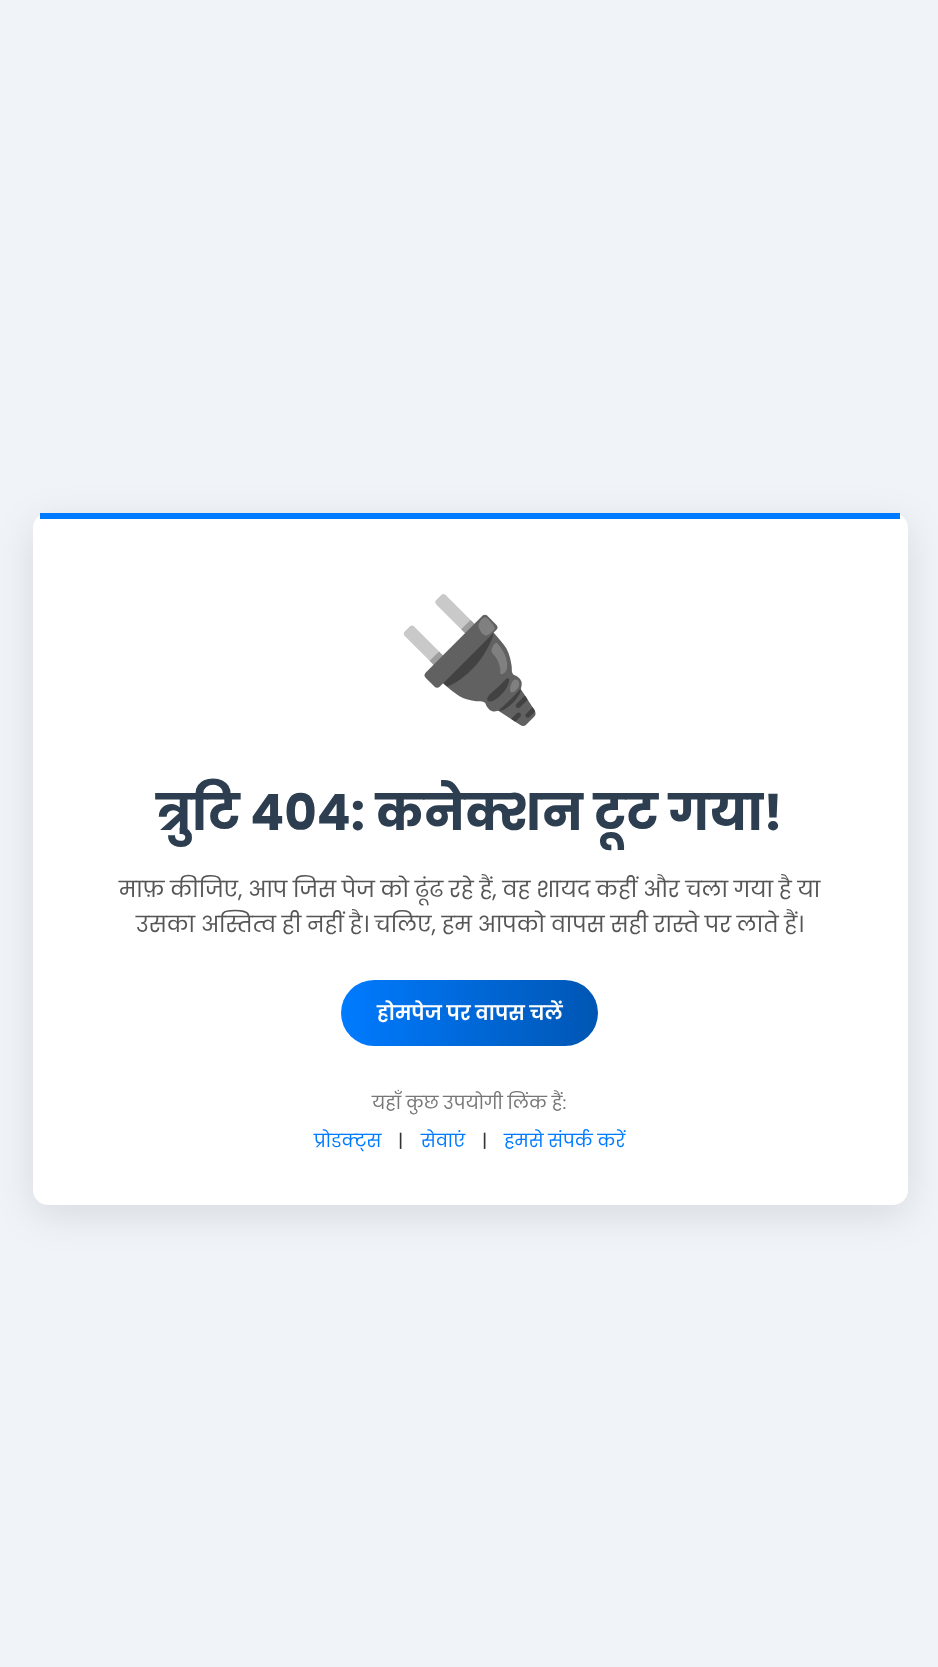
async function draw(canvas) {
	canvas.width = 938;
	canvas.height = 1667;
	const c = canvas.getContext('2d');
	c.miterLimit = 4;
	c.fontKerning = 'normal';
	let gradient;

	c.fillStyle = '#f0f4f8';
	c.fillRect(0, 0, 938, 1667);
	c.fillStyle = '#0000001a';
	c.filter = 'blur(19px)';
	c.beginPath();
	c.roundRect(33, 523, 875, 692, 15);
	c.fill();
	c.filter = 'none';
	c.fillStyle = '#fff';
	c.beginPath();
	c.roundRect(33, 513, 875, 692, 15);
	c.fill();
	c.fillStyle = '#007bff';
	c.fillRect(40, 513, 860, 6);
	c.font = '120px Noto Color Emoji';
	c.fillText('🔌', 395, 701);
	c.font = 'bold 50px Poppins';
	c.fillStyle = '#2c3e50';
	c.fillText('त्रुटि 404: कनेक्शन टूट गया!', 156, 830);
	c.font = '22px Poppins';
	c.fillStyle = '#555';
	c.fillText('माफ़ कीजिए, आप जिस पेज को ढूंढ रहे हैं, वह शायद कहीं और चला गया है या', 119, 897);
	c.fillText('उसका अस्तित्व ही नहीं है। चलिए, हम आपको वापस सही रास्ते पर लाते हैं।', 136, 932);
	gradient = c.createLinearGradient(341, 1013, 598, 1013);
	gradient.addColorStop(0, '#007bff');
	gradient.addColorStop(1, '#0056b3');
	c.fillStyle = gradient;
	c.beginPath();
	c.roundRect(341, 980, 257, 66, 33);
	c.fill();
	c.font = '600 20px Poppins';
	c.fillStyle = '#fff';
	c.fillText('होमपेज पर वापस चलें', 377, 1020);
	c.font = '18px Poppins';
	c.fillStyle = '#777';
	c.fillText('यहाँ कुछ उपयोगी लिंक हैं:', 372, 1109);
	c.fillStyle = '#007bff';
	c.fillText('प्रोडक्ट्स', 314, 1147);
	c.fillStyle = '#333';
	c.fillText('|', 398, 1147);
	c.fillStyle = '#007bff';
	c.fillText('सेवाएं', 421, 1147);
	c.fillStyle = '#333';
	c.fillText('|', 482, 1147);
	c.fillStyle = '#007bff';
	c.fillText('हमसे संपर्क करें', 504, 1147);
}

draw(document.querySelector('canvas'));
